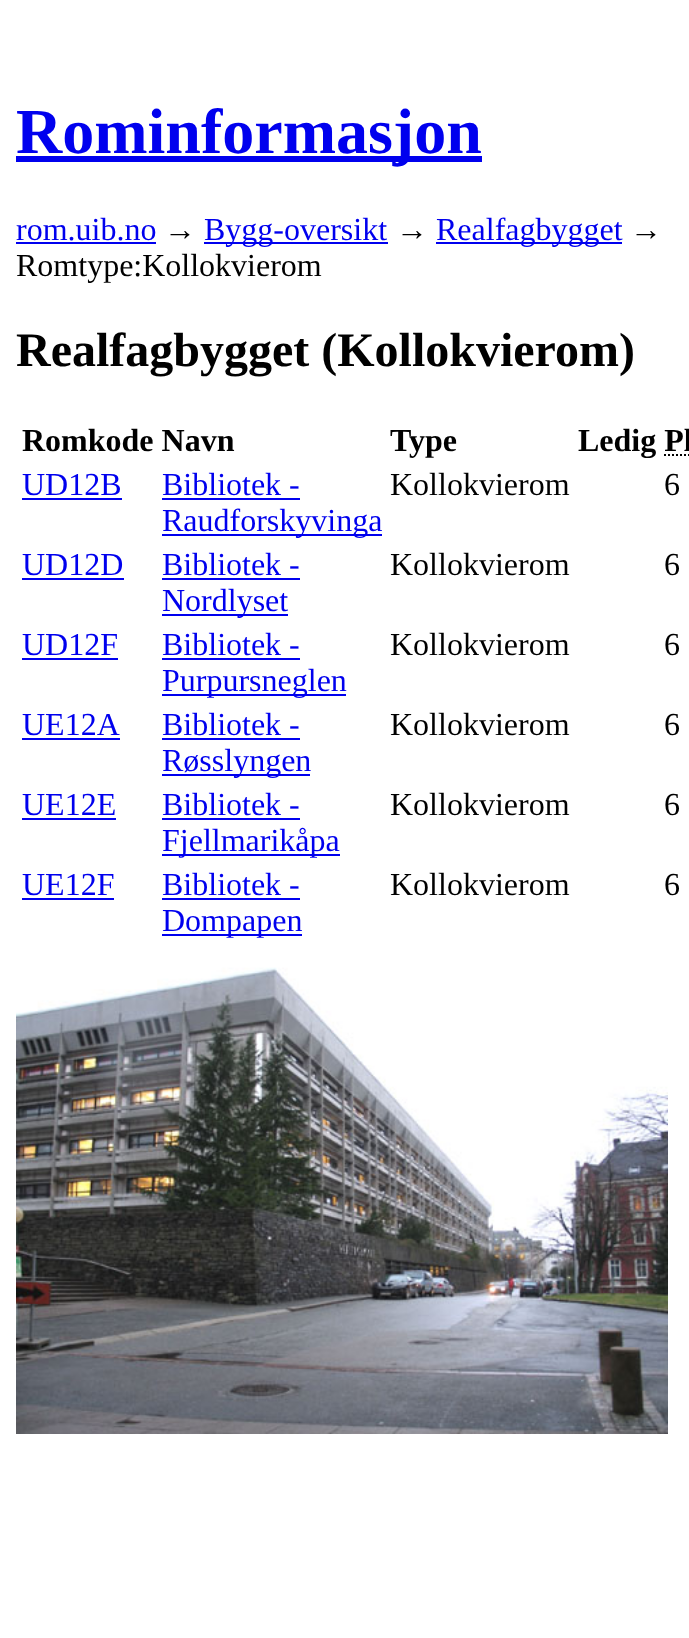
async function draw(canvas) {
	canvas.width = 689;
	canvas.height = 1638;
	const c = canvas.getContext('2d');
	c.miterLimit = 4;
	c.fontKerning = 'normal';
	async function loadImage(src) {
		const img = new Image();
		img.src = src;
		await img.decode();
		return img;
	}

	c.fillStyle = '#fff';
	c.fillRect(0, 0, 689, 1638);
	c.fillStyle = '#00e';
	c.fillRect(16, 156, 466, 6);
	c.font = 'bold 64px Liberation Serif';
	c.fillText('Rominformasjon', 16, 153);
	c.font = '32px Liberation Serif';
	c.fillText('rom.uib.no', 16, 240);
	c.fillRect(16, 242, 140, 2);
	c.fillStyle = '#000';
	c.fillText('→', 164, 240);
	c.fillStyle = '#00e';
	c.fillRect(204, 242, 184, 2);
	c.fillText('Bygg-oversikt', 204, 240);
	c.fillStyle = '#000';
	c.fillText('→', 396, 240);
	c.fillStyle = '#00e';
	c.fillRect(436, 242, 186, 2);
	c.fillText('Realfagbygget', 436, 240);
	c.fillStyle = '#000';
	c.fillText('→', 630, 240);
	c.fillText('Romtype:Kollokvierom', 16, 276);
	c.font = 'bold 48px Liberation Serif';
	c.fillText('Realfagbygget (Kollokvierom)', 16, 366);
	c.font = 'bold 32px Liberation Serif';
	for (const [text, x, y] of [
		['Romkode Navn', 22, 451],
		['Type', 390, 451],
		['Ledig Pl', 578, 451],
	]) {
		c.fillText(text, x, y);
	}
	c.beginPath();
	c.moveTo(664, 455);
	c.lineTo(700, 455);
	c.strokeStyle = '#000';
	c.lineWidth = 2;
	c.setLineDash([2, 2]);
	c.stroke();
	c.font = '32px Liberation Serif';
	c.fillStyle = '#00e';
	c.fillText('UD12B', 22, 495);
	c.fillRect(22, 498, 100, 2);
	c.fillText('Bibliotek -', 162, 495);
	c.fillRect(162, 498, 138, 2);
	c.fillRect(162, 534, 220, 2);
	c.fillText('Raudforskyvinga', 162, 531);
	c.fillStyle = '#000';
	c.fillText('Kollokvierom', 390, 495);
	c.fillText('6', 664, 495);
	c.fillStyle = '#00e';
	c.fillText('UD12D', 22, 575);
	c.fillRect(22, 578, 102, 2);
	c.fillText('Bibliotek -', 162, 575);
	c.fillRect(162, 578, 138, 2);
	c.fillRect(162, 614, 126, 2);
	c.fillText('Nordlyset', 162, 611);
	c.fillStyle = '#000';
	c.fillText('Kollokvierom', 390, 575);
	c.fillText('6', 664, 575);
	c.fillStyle = '#00e';
	c.fillText('UD12F', 22, 655);
	c.fillRect(22, 658, 96, 2);
	c.fillText('Bibliotek -', 162, 655);
	c.fillRect(162, 658, 138, 2);
	c.fillRect(162, 694, 184, 2);
	c.fillText('Purpursneglen', 162, 691);
	c.fillStyle = '#000';
	c.fillText('Kollokvierom', 390, 655);
	c.fillText('6', 664, 655);
	c.fillStyle = '#00e';
	c.fillText('UE12A', 22, 735);
	c.fillRect(22, 738, 98, 2);
	c.fillText('Bibliotek -', 162, 735);
	c.fillRect(162, 738, 138, 2);
	c.fillRect(162, 774, 148, 2);
	c.fillText('Røsslyngen', 162, 771);
	c.fillStyle = '#000';
	c.fillText('Kollokvierom', 390, 735);
	c.fillText('6', 664, 735);
	c.fillStyle = '#00e';
	c.fillText('UE12E', 22, 815);
	c.fillRect(22, 818, 94, 2);
	c.fillText('Bibliotek -', 162, 815);
	c.fillRect(162, 818, 138, 2);
	c.fillRect(162, 854, 178, 2);
	c.fillText('Fjellmarikåpa', 162, 851);
	c.fillStyle = '#000';
	c.fillText('Kollokvierom', 390, 815);
	c.fillText('6', 664, 815);
	c.fillStyle = '#00e';
	c.fillText('UE12F', 22, 895);
	c.fillRect(22, 898, 92, 2);
	c.fillText('Bibliotek -', 162, 895);
	c.fillRect(162, 898, 138, 2);
	c.fillRect(162, 934, 140, 2);
	c.fillText('Dompapen', 162, 931);
	c.fillStyle = '#000';
	c.fillText('Kollokvierom', 390, 895);
	c.fillText('6', 664, 895);
	c.drawImage(await loadImage('img1.png'), 16, 967, 652, 467);
}

draw(document.querySelector('canvas'));
